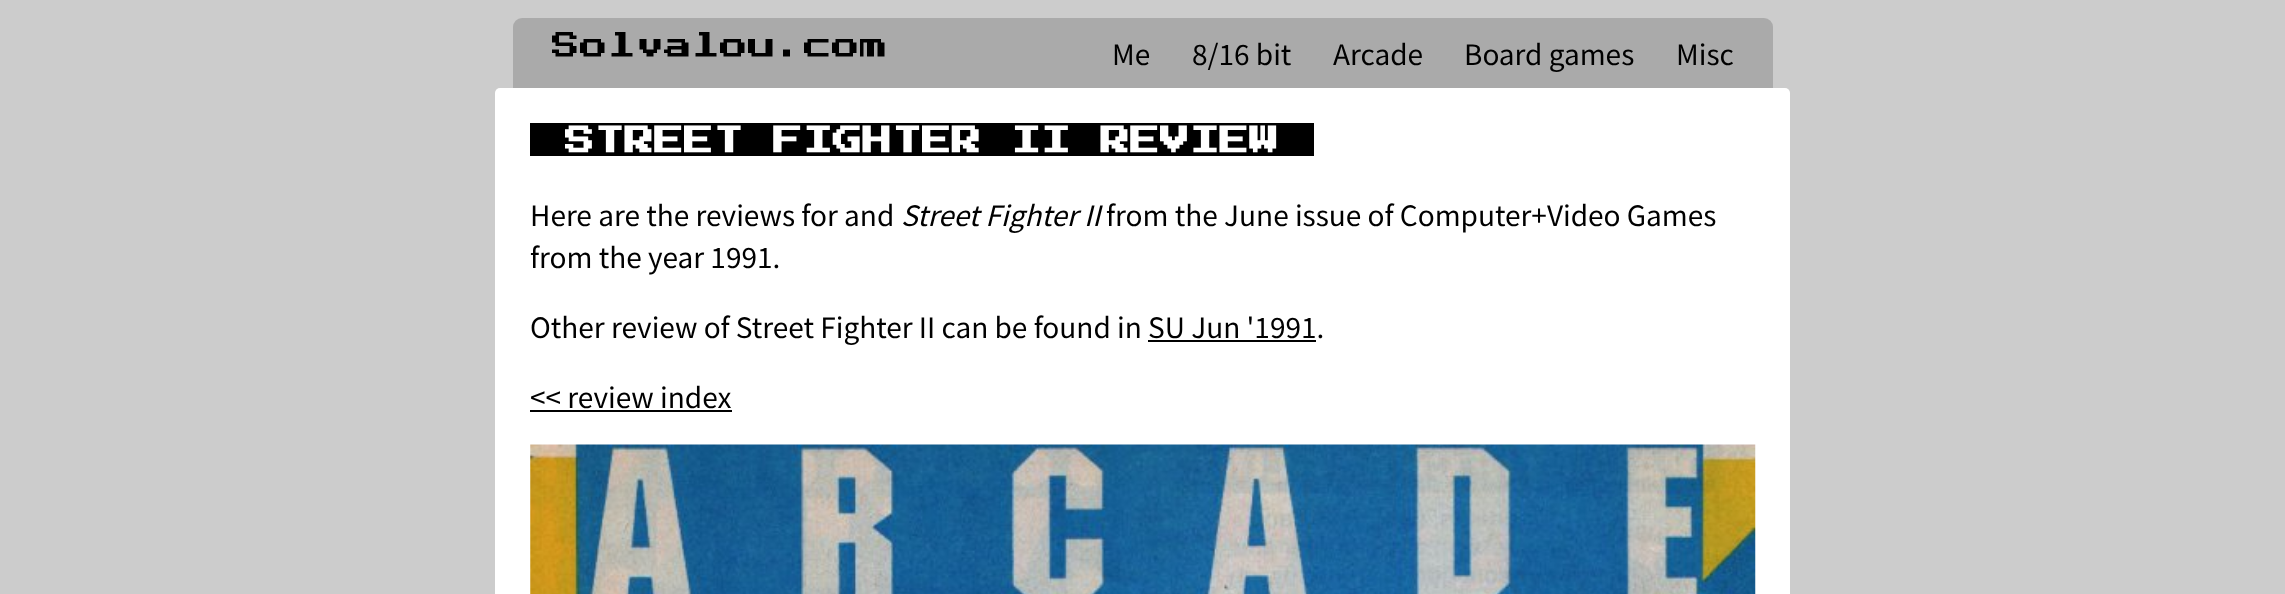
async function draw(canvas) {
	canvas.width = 2285;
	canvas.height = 594;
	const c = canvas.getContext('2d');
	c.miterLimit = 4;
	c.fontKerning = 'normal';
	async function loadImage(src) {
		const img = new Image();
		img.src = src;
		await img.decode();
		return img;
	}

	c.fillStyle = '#ccc';
	c.fillRect(0, 0, 2285, 594);
	c.fillStyle = '#aaa';
	c.beginPath();
	c.roundRect(513, 18, 1260, 70, [9, 9, 0, 0]);
	c.fill();
	c.font = '28px "Press Start 2P"';
	c.fillStyle = '#000';
	c.fillText('Solvalou.com', 552, 60);
	c.font = '28px Noto Sans TC';
	for (const [text, x, y] of [
		['Me', 1112, 65],
		['8/16 bit', 1192, 65],
		['Arcade', 1333, 65],
		['Board games', 1464, 65],
		['Misc', 1676, 65],
	]) {
		c.fillText(text, x, y);
	}
	c.fillStyle = '#fff';
	c.beginPath();
	c.roundRect(495, 88, 1295, 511, 5);
	c.fill();
	c.fillStyle = '#000';
	c.fillRect(530, 123, 784, 33);
	c.font = 'bold 29.75px "Press Start 2P"';
	c.fillStyle = '#fff';
	c.fillText('STREET FIGHTER II REVIEW', 565, 156);
	c.font = '28px Noto Sans TC';
	c.fillStyle = '#000';
	c.fillText('Here are the reviews for and', 530, 226);
	c.font = 'italic 28px Noto Sans TC';
	c.fillText('Street Fighter II', 901, 226);
	c.font = '28px Noto Sans TC';
	for (const [text, x, y] of [
		['from the June issue of Computer+Video Games', 1106, 226],
		['from the year 1991.', 530, 268],
		['Other review of Street Fighter II can be found in SU Jun \'1991.', 530, 338],
	]) {
		c.fillText(text, x, y);
	}
	c.fillRect(1148, 340, 168, 2);
	c.fillText('<< review index', 530, 408);
	c.fillRect(530, 410, 202, 2);
	c.drawImage(await loadImage('img1.png'), 530, 444, 1226, 150);
}

draw(document.querySelector('canvas'));
